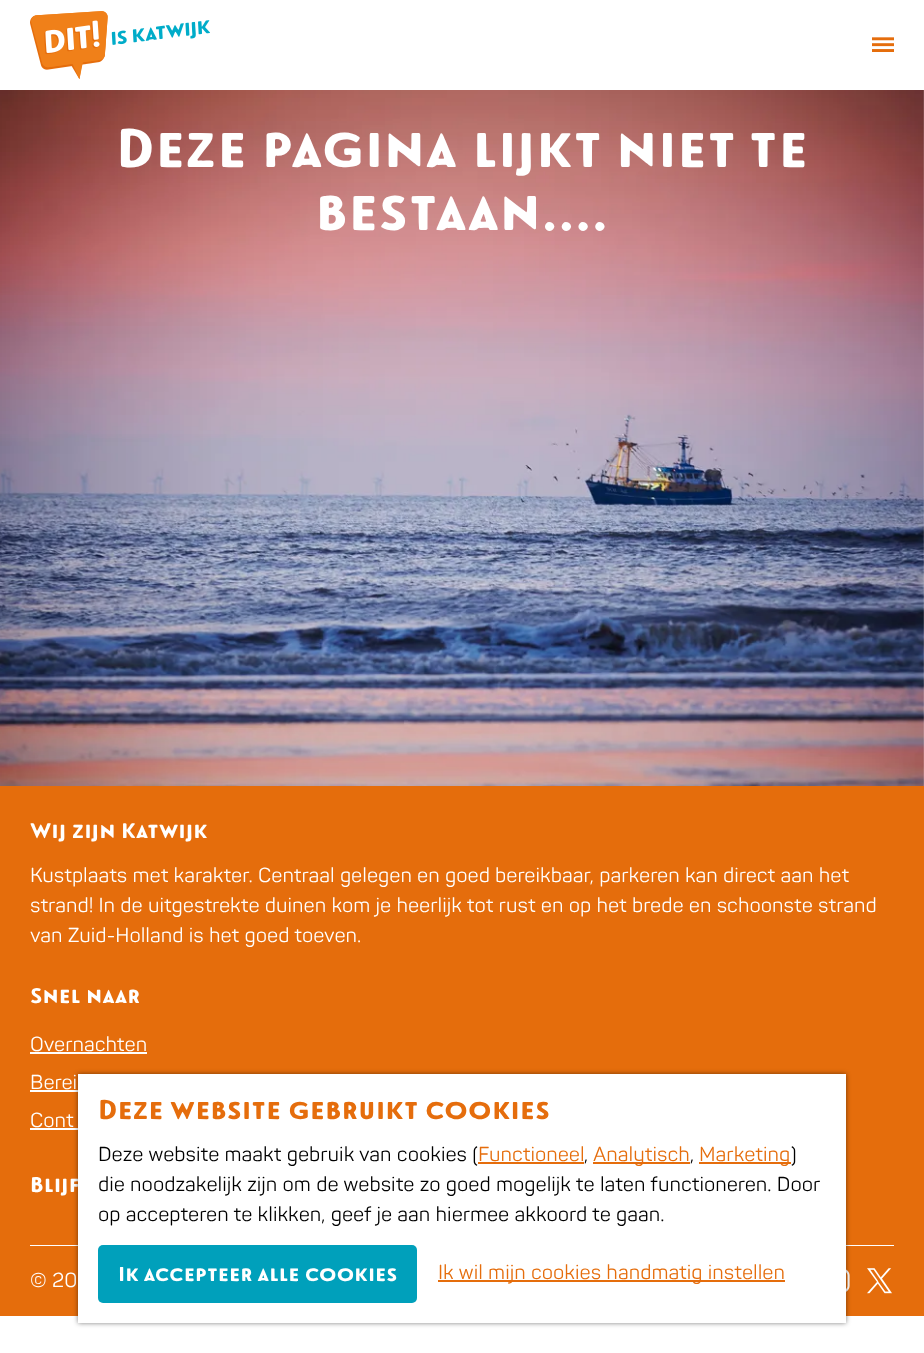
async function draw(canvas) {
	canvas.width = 924;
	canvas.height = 1353;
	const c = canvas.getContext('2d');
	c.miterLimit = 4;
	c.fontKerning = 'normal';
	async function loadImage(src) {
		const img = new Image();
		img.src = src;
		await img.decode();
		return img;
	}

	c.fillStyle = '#fff';
	c.fillRect(0, 0, 924, 1353);
	c.drawImage(await loadImage('img1.png'), 30, 11, 180, 68);
	c.drawImage(await loadImage('img2.png'), 872, 37, 22, 15);
	c.drawImage(await loadImage('img3.png'), 0, 90, 924, 696);
	c.font = '800 54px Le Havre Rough';
	c.fillText('Deze pagina lijkt niet te', 116, 167);
	c.fillText('bestaan....', 315, 230);
	c.fillStyle = '#e56d0c';
	c.fillRect(0, 786, 924, 530);
	c.font = '800 21px Le Havre Rough';
	c.fillStyle = '#fff';
	c.fillText('Wij zijn Katwijk', 30, 838);
	c.font = '20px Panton';
	for (const [text, x, y] of [
		['Kustplaats met karakter. Centraal gelegen en goed bereikbaar, parkeren kan direct aan het', 30, 882],
		['strand! In de uitgestrekte duinen kom je heerlijk tot rust en op het brede en schoonste strand', 30, 912],
		['van Zuid-Holland is het goed toeven.', 30, 942],
	]) {
		c.fillText(text, x, y);
	}
	c.font = '800 21px Le Havre Rough';
	c.fillText('Snel naar', 30, 1003);
	c.font = '20px Panton';
	c.fillText('Overnachten', 30, 1051);
	c.fillRect(30, 1052, 117, 2);
	c.fillText('Berei', 30, 1089);
	c.fillRect(30, 1090, 48, 2);
	c.fillText('Cont', 30, 1127);
	c.fillRect(30, 1128, 48, 2);
	c.font = '800 21px Le Havre Rough';
	c.fillText('Blijf', 30, 1192);
	c.fillRect(30, 1245, 864, 1);
	c.font = '20px Panton';
	c.fillText('© 20', 30, 1287);
	c.drawImage(await loadImage('img4.png'), 846, 1269, 4, 23);
	c.drawImage(await loadImage('img5.png'), 867, 1268, 25, 26);
	c.fillStyle = '#00000080';
	c.filter = 'blur(2.5px)';
	c.beginPath();
	c.rect(78, 1074, 768, 249);
	c.fill();
	c.filter = 'none';
	c.fillStyle = '#fff';
	c.fillRect(78, 1074, 768, 249);
	c.font = '800 27px Le Havre Rough';
	c.fillStyle = '#e56d0c';
	c.fillText('Deze website gebruikt cookies', 98, 1119);
	c.font = '20px Panton';
	c.fillStyle = '#000';
	c.fillText('Deze website maakt gebruik van cookies (', 98, 1161);
	c.fillStyle = '#e56d0c';
	c.fillText('Functioneel', 478, 1161);
	c.fillRect(478, 1162, 106, 2);
	c.fillStyle = '#000';
	c.fillText(',', 584, 1161);
	c.fillStyle = '#e56d0c';
	c.fillRect(593, 1162, 97, 2);
	c.fillText('Analytisch', 593, 1161);
	c.fillStyle = '#000';
	c.fillText(',', 690, 1161);
	c.fillStyle = '#e56d0c';
	c.fillRect(699, 1162, 92, 2);
	c.fillText('Marketing', 699, 1161);
	c.fillStyle = '#000';
	for (const [text, x, y] of [
		[')', 791, 1161],
		['die noodzakelijk zijn om de website zo goed mogelijk te laten functioneren. Door', 98, 1191],
		['op accepteren te klikken, geef je aan hiermee akkoord te gaan.', 98, 1221],
	]) {
		c.fillText(text, x, y);
	}
	c.fillStyle = '#00a0bb';
	c.beginPath();
	c.roundRect(98, 1245, 319, 58, 5);
	c.fill();
	c.font = '800 20px Le Havre Rough';
	c.fillStyle = '#fff';
	c.fillText('Ik accepteer alle cookies', 118, 1281);
	c.fillStyle = '#e56d0c';
	c.fillRect(438, 1280, 347, 2);
	c.font = '20px Panton';
	c.fillText('Ik wil mijn cookies handmatig instellen', 438, 1279);
}

draw(document.querySelector('canvas'));
